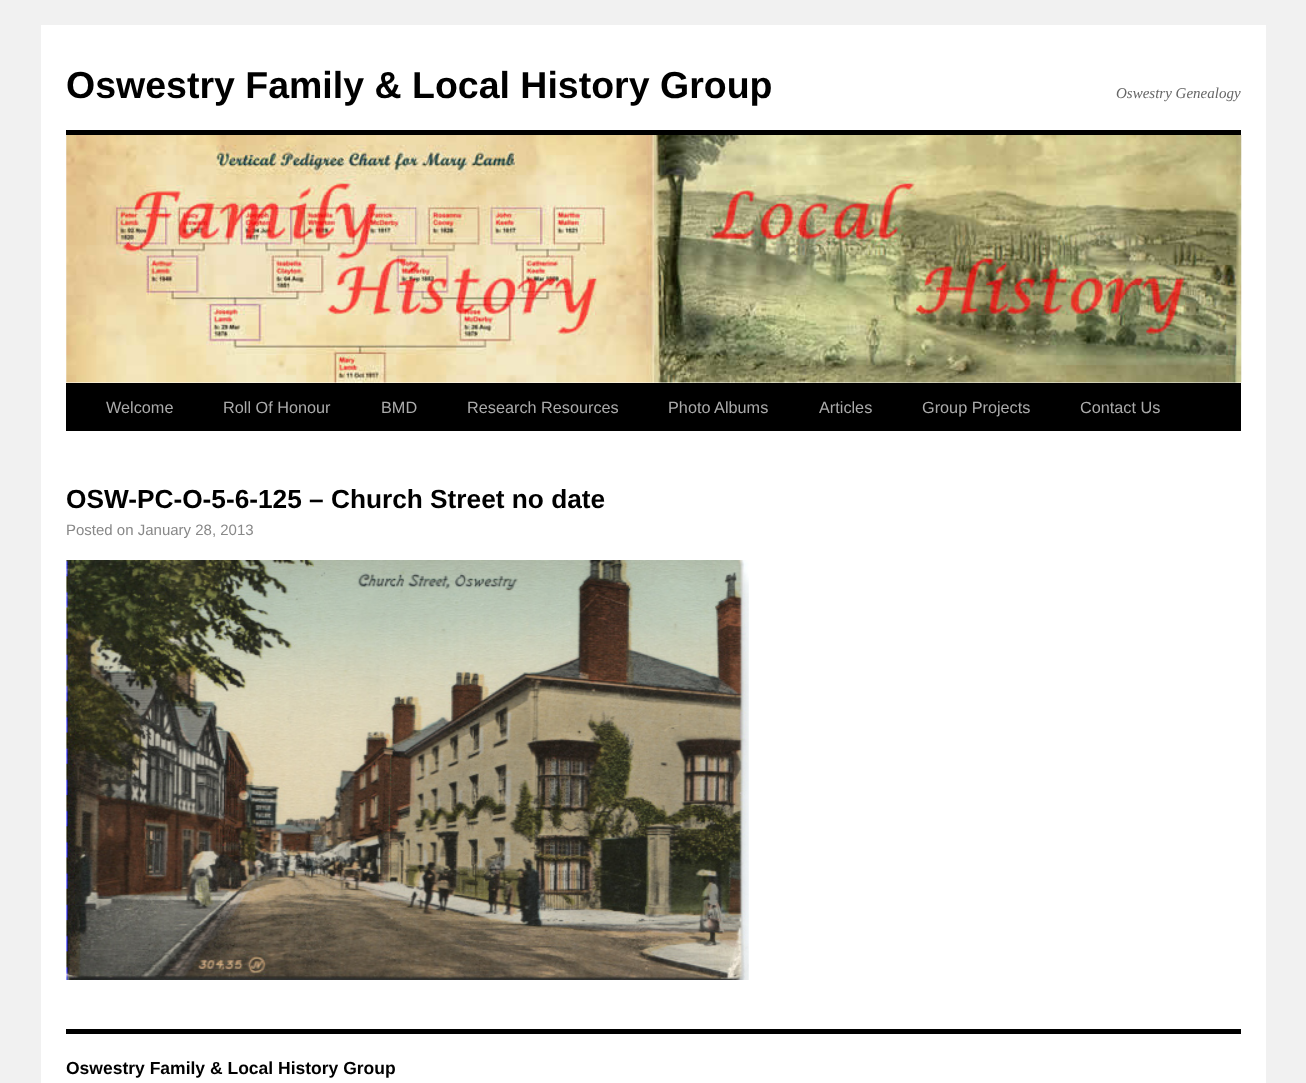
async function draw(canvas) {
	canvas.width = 1306;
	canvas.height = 1083;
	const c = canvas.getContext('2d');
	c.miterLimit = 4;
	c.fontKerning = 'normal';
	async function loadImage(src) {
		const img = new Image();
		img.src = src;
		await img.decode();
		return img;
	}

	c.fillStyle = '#f1f1f1';
	c.fillRect(0, 0, 1306, 1083);
	c.fillStyle = '#fff';
	c.fillRect(41, 25, 1225, 1058);
	c.font = 'bold 37.5px Liberation Sans';
	c.fillStyle = '#000';
	c.fillText('Oswestry Family & Local History Group', 66, 98);
	c.font = 'italic 15px Liberation Serif';
	c.fillStyle = '#666';
	c.fillText('Oswestry Genealogy', 1116, 98);
	c.fillStyle = '#000';
	c.fillRect(66, 130, 1175, 5);
	c.fillRect(66, 383, 1175, 48);
	c.drawImage(await loadImage('img1.png'), 66, 135, 1176, 248);
	c.font = '16.25px Liberation Sans';
	c.fillStyle = '#aaa';
	for (const [text, x, y] of [
		['Welcome', 106, 413],
		['Roll Of Honour', 223, 413],
		['BMD', 381, 413],
		['Research Resources', 467, 413],
		['Photo Albums', 668, 413],
		['Articles', 819, 413],
		['Group Projects', 922, 413],
		['Contact Us', 1080, 413],
	]) {
		c.fillText(text, x, y);
	}
	c.font = 'bold 26.25px Liberation Sans';
	c.fillStyle = '#000';
	c.fillText('OSW-PC-O-5-6-125 – Church Street no date', 66, 508);
	c.font = '15px Liberation Sans';
	c.fillStyle = '#888';
	c.fillText('Posted on January 28, 2013', 66, 535);
	c.drawImage(await loadImage('img2.png'), 66, 560, 683, 420);
	c.fillStyle = '#000';
	c.fillRect(66, 1029, 1175, 5);
	c.font = 'bold 17.5px Liberation Sans';
	c.fillText('Oswestry Family & Local History Group', 66, 1074);
}

draw(document.querySelector('canvas'));
